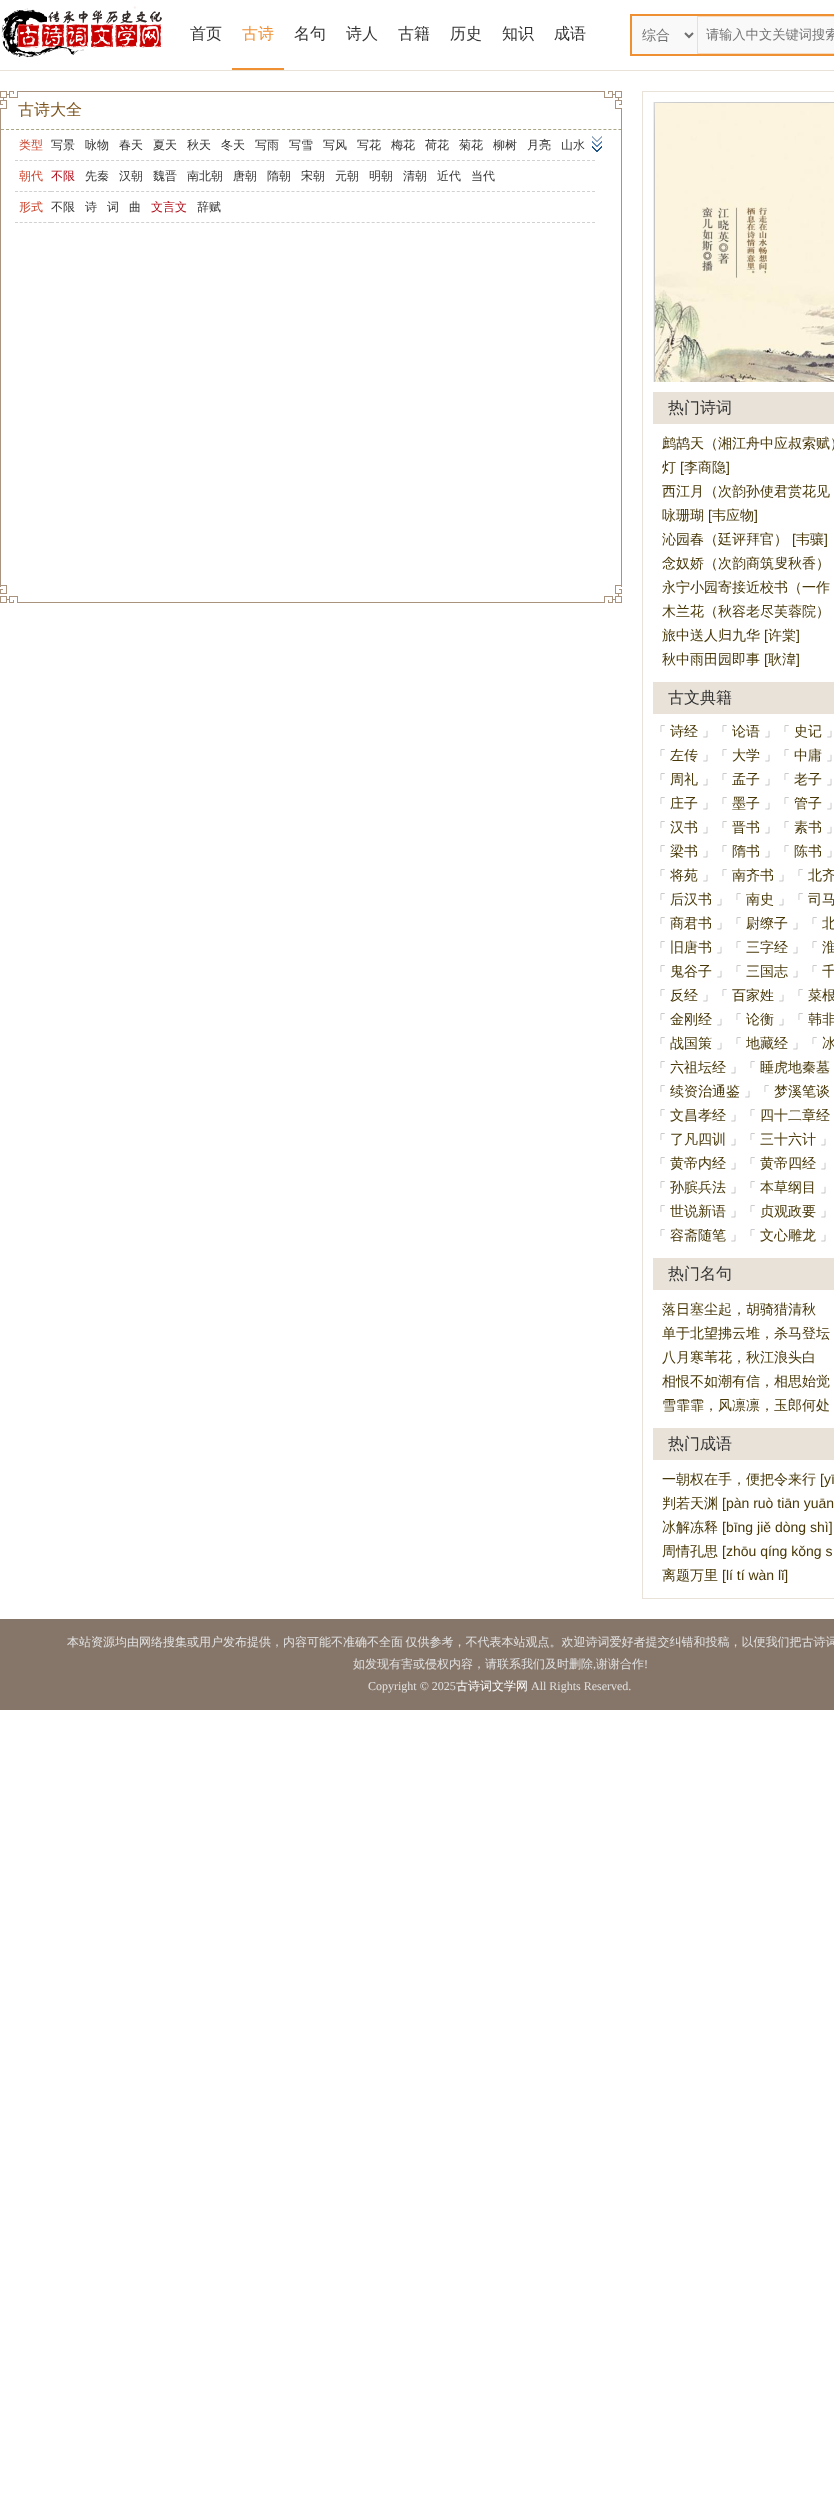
async function draw(canvas) {
	canvas.width = 834;
	canvas.height = 2505;
	const c = canvas.getContext('2d');
	c.miterLimit = 4;
	c.fontKerning = 'normal';
	async function loadImage(src) {
		const img = new Image();
		img.src = src;
		await img.decode();
		return img;
	}

	c.fillStyle = '#fff';
	c.fillRect(0, 0, 834, 2505);
	c.fillStyle = '#e9e2d8';
	c.fillRect(0, 70, 834, 1);
	c.drawImage(await loadImage('img1.png'), 1, 6, 161, 52);
	c.font = '500 16px WenQuanYi Zen Hei';
	c.fillStyle = '#333';
	c.fillText('首页', 190, 39);
	c.fillStyle = '#ef9033';
	c.fillRect(232, 68, 52, 2);
	c.fillText('古诗', 242, 39);
	c.fillStyle = '#333';
	for (const [text, x, y] of [
		['名句', 294, 39],
		['诗人', 346, 39],
		['古籍', 398, 39],
		['历史', 450, 39],
		['知识', 502, 39],
		['成语', 554, 39],
	]) {
		c.fillText(text, x, y);
	}
	c.drawImage(await loadImage('img2.png'), 630, 14, 204, 42);
	c.fillStyle = '#f9f9f9';
	c.fillRect(632, 16, 65, 38);
	c.fillStyle = '#e1e1e1';
	c.fillRect(697, 16, 1, 38);
	c.beginPath();
	c.moveTo(685, 33);
	c.lineTo(689, 37);
	c.lineTo(693, 33);
	c.strokeStyle = '#6e6e6e';
	c.lineWidth = 2;
	c.stroke();
	c.font = '500 14px WenQuanYi Zen Hei';
	c.fillStyle = '#6e6e6e';
	c.fillText('综合', 642, 40);
	c.font = '500 13.25px WenQuanYi Zen Hei';
	c.fillStyle = '#757575';
	c.fillText('请输入中文关键词搜索', 706, 39);
	c.strokeStyle = '#a9927e';
	c.lineWidth = 1;
	c.strokeRect(0.5, 91.5, 621, 511);
	c.drawImage(await loadImage('img3.png'), 0, 91, 18, 18);
	c.beginPath();
	c.moveTo(1, 129.5);
	c.lineTo(621, 129.5);
	c.strokeStyle = '#a8a684';
	c.setLineDash([3, 2.02]);
	c.stroke();
	c.font = '500 16px WenQuanYi Zen Hei';
	c.fillStyle = '#7d551d';
	c.fillText('古诗大全', 18, 115);
	c.drawImage(await loadImage('img4.png'), 604, 91, 18, 18);
	c.beginPath();
	c.moveTo(15, 160.5);
	c.lineTo(51, 160.5);
	c.strokeStyle = '#d2d0d0';
	c.setLineDash([3, 1.71]);
	c.stroke();
	c.font = '500 12px WenQuanYi Zen Hei';
	c.fillStyle = '#cb442d';
	c.fillText('类型', 19, 149);
	c.beginPath();
	c.moveTo(51, 160.5);
	c.lineTo(595, 160.5);
	c.setLineDash([3, 2.01]);
	c.stroke();
	c.fillStyle = '#333';
	for (const [text, x, y] of [
		['写景', 51, 149],
		['咏物', 85, 149],
		['春天', 119, 149],
		['夏天', 153, 149],
		['秋天', 187, 149],
		['冬天', 221, 149],
		['写雨', 255, 149],
		['写雪', 289, 149],
		['写风', 323, 149],
		['写花', 357, 149],
		['梅花', 391, 149],
		['荷花', 425, 149],
		['菊花', 459, 149],
		['柳树', 493, 149],
		['月亮', 527, 149],
		['山水', 561, 149],
	]) {
		c.fillText(text, x, y);
	}
	c.drawImage(await loadImage('img5.png'), 592, 136, 10, 16);
	c.beginPath();
	c.moveTo(15, 191.5);
	c.lineTo(51, 191.5);
	c.setLineDash([3, 1.71]);
	c.stroke();
	c.fillStyle = '#cb442d';
	c.fillText('朝代', 19, 180);
	c.beginPath();
	c.moveTo(51, 191.5);
	c.lineTo(595, 191.5);
	c.setLineDash([3, 2.01]);
	c.stroke();
	c.fillStyle = '#b00815';
	c.fillText('不限', 51, 180);
	c.fillStyle = '#333';
	for (const [text, x, y] of [
		['先秦', 85, 180],
		['汉朝', 119, 180],
		['魏晋', 153, 180],
		['南北朝', 187, 180],
		['唐朝', 233, 180],
		['隋朝', 267, 180],
		['宋朝', 301, 180],
		['元朝', 335, 180],
		['明朝', 369, 180],
		['清朝', 403, 180],
		['近代', 437, 180],
		['当代', 471, 180],
	]) {
		c.fillText(text, x, y);
	}
	c.beginPath();
	c.moveTo(15, 222.5);
	c.lineTo(51, 222.5);
	c.setLineDash([3, 1.71]);
	c.stroke();
	c.fillStyle = '#cb442d';
	c.fillText('形式', 19, 211);
	c.beginPath();
	c.moveTo(51, 222.5);
	c.lineTo(595, 222.5);
	c.setLineDash([3, 2.01]);
	c.stroke();
	c.fillStyle = '#333';
	for (const [text, x, y] of [
		['不限', 51, 211],
		['诗', 85, 211],
		['词', 107, 211],
		['曲', 129, 211],
	]) {
		c.fillText(text, x, y);
	}
	c.fillStyle = '#b00815';
	c.fillText('文言文', 151, 211);
	c.fillStyle = '#333';
	c.fillText('辞赋', 197, 211);
	c.drawImage(await loadImage('img6.png'), 0, 585, 18, 18);
	c.drawImage(await loadImage('img7.png'), 604, 585, 18, 18);
	c.strokeStyle = '#e9e2d8';
	c.setLineDash([]);
	c.strokeRect(642.5, 91.5, 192, 1507);
	c.fillStyle = '#eee';
	c.fillRect(653, 102, 1, 280);
	c.drawImage(await loadImage('img8.png'), 654, 102, 180, 280);
	c.fillStyle = '#e9e2d8';
	c.fillRect(653, 392, 181, 32);
	c.font = '500 16px WenQuanYi Zen Hei';
	c.fillStyle = '#333';
	c.fillText('热门诗词', 668, 413);
	c.font = '500 14px WenQuanYi Zen Hei';
	c.fillStyle = '#483808';
	c.fillText('鹧鸪天（湘江舟中应叔索赋）', 662, 448);
	c.fillText('灯', 662, 472);
	c.font = '14px Liberation Sans';
	c.fillText('[', 680, 472);
	c.font = '500 14px WenQuanYi Zen Hei';
	c.fillText('李商隐', 684, 472);
	c.font = '14px Liberation Sans';
	c.fillText(']', 726, 472);
	c.font = '500 14px WenQuanYi Zen Hei';
	c.fillText('西江月（次韵孙使君赏花见', 662, 496);
	c.fillText('咏珊瑚', 662, 520);
	c.font = '14px Liberation Sans';
	c.fillText('[', 708, 520);
	c.font = '500 14px WenQuanYi Zen Hei';
	c.fillText('韦应物', 712, 520);
	c.font = '14px Liberation Sans';
	c.fillText(']', 754, 520);
	c.font = '500 14px WenQuanYi Zen Hei';
	c.fillText('沁园春（廷评拜官）', 662, 544);
	c.font = '14px Liberation Sans';
	c.fillText('[', 792, 544);
	c.font = '500 14px WenQuanYi Zen Hei';
	c.fillText('韦骧', 796, 544);
	c.font = '14px Liberation Sans';
	c.fillText(']', 824, 544);
	c.font = '500 14px WenQuanYi Zen Hei';
	for (const [text, x, y] of [
		['念奴娇（次韵商筑叟秋香）', 662, 568],
		['永宁小园寄接近校书（一作', 662, 592],
		['木兰花（秋容老尽芙蓉院）', 662, 616],
		['旅中送人归九华', 662, 640],
	]) {
		c.fillText(text, x, y);
	}
	c.font = '14px Liberation Sans';
	c.fillText('[', 764, 640);
	c.font = '500 14px WenQuanYi Zen Hei';
	c.fillText('许棠', 768, 640);
	c.font = '14px Liberation Sans';
	c.fillText(']', 796, 640);
	c.font = '500 14px WenQuanYi Zen Hei';
	c.fillText('秋中雨田园即事', 662, 664);
	c.font = '14px Liberation Sans';
	c.fillText('[', 764, 664);
	c.font = '500 14px WenQuanYi Zen Hei';
	c.fillText('耿湋', 768, 664);
	c.font = '14px Liberation Sans';
	c.fillText(']', 796, 664);
	c.fillStyle = '#e9e2d8';
	c.fillRect(653, 682, 181, 32);
	c.font = '500 16px WenQuanYi Zen Hei';
	c.fillStyle = '#333';
	c.fillText('古文典籍', 668, 703);
	c.font = '500 13px WenQuanYi Zen Hei';
	c.fillStyle = '#999';
	c.fillText('「', 653, 736);
	c.font = '500 14px WenQuanYi Zen Hei';
	c.fillStyle = '#483808';
	c.fillText('诗经', 670, 736);
	c.font = '500 13px WenQuanYi Zen Hei';
	c.fillStyle = '#999';
	c.fillText('」「', 702, 736);
	c.font = '500 14px WenQuanYi Zen Hei';
	c.fillStyle = '#483808';
	c.fillText('论语', 732, 736);
	c.font = '500 13px WenQuanYi Zen Hei';
	c.fillStyle = '#999';
	c.fillText('」「', 764, 736);
	c.font = '500 14px WenQuanYi Zen Hei';
	c.fillStyle = '#483808';
	c.fillText('史记', 794, 736);
	c.font = '500 13px WenQuanYi Zen Hei';
	c.fillStyle = '#999';
	c.fillText('」', 826, 736);
	c.fillText('「', 653, 760);
	c.font = '500 14px WenQuanYi Zen Hei';
	c.fillStyle = '#483808';
	c.fillText('左传', 670, 760);
	c.font = '500 13px WenQuanYi Zen Hei';
	c.fillStyle = '#999';
	c.fillText('」「', 702, 760);
	c.font = '500 14px WenQuanYi Zen Hei';
	c.fillStyle = '#483808';
	c.fillText('大学', 732, 760);
	c.font = '500 13px WenQuanYi Zen Hei';
	c.fillStyle = '#999';
	c.fillText('」「', 764, 760);
	c.font = '500 14px WenQuanYi Zen Hei';
	c.fillStyle = '#483808';
	c.fillText('中庸', 794, 760);
	c.font = '500 13px WenQuanYi Zen Hei';
	c.fillStyle = '#999';
	c.fillText('」', 826, 760);
	c.fillText('「', 653, 784);
	c.font = '500 14px WenQuanYi Zen Hei';
	c.fillStyle = '#483808';
	c.fillText('周礼', 670, 784);
	c.font = '500 13px WenQuanYi Zen Hei';
	c.fillStyle = '#999';
	c.fillText('」「', 702, 784);
	c.font = '500 14px WenQuanYi Zen Hei';
	c.fillStyle = '#483808';
	c.fillText('孟子', 732, 784);
	c.font = '500 13px WenQuanYi Zen Hei';
	c.fillStyle = '#999';
	c.fillText('」「', 764, 784);
	c.font = '500 14px WenQuanYi Zen Hei';
	c.fillStyle = '#483808';
	c.fillText('老子', 794, 784);
	c.font = '500 13px WenQuanYi Zen Hei';
	c.fillStyle = '#999';
	c.fillText('」', 826, 784);
	c.fillText('「', 653, 808);
	c.font = '500 14px WenQuanYi Zen Hei';
	c.fillStyle = '#483808';
	c.fillText('庄子', 670, 808);
	c.font = '500 13px WenQuanYi Zen Hei';
	c.fillStyle = '#999';
	c.fillText('」「', 702, 808);
	c.font = '500 14px WenQuanYi Zen Hei';
	c.fillStyle = '#483808';
	c.fillText('墨子', 732, 808);
	c.font = '500 13px WenQuanYi Zen Hei';
	c.fillStyle = '#999';
	c.fillText('」「', 764, 808);
	c.font = '500 14px WenQuanYi Zen Hei';
	c.fillStyle = '#483808';
	c.fillText('管子', 794, 808);
	c.font = '500 13px WenQuanYi Zen Hei';
	c.fillStyle = '#999';
	c.fillText('」', 826, 808);
	c.fillText('「', 653, 832);
	c.font = '500 14px WenQuanYi Zen Hei';
	c.fillStyle = '#483808';
	c.fillText('汉书', 670, 832);
	c.font = '500 13px WenQuanYi Zen Hei';
	c.fillStyle = '#999';
	c.fillText('」「', 702, 832);
	c.font = '500 14px WenQuanYi Zen Hei';
	c.fillStyle = '#483808';
	c.fillText('晋书', 732, 832);
	c.font = '500 13px WenQuanYi Zen Hei';
	c.fillStyle = '#999';
	c.fillText('」「', 764, 832);
	c.font = '500 14px WenQuanYi Zen Hei';
	c.fillStyle = '#483808';
	c.fillText('素书', 794, 832);
	c.font = '500 13px WenQuanYi Zen Hei';
	c.fillStyle = '#999';
	c.fillText('」', 826, 832);
	c.fillText('「', 653, 856);
	c.font = '500 14px WenQuanYi Zen Hei';
	c.fillStyle = '#483808';
	c.fillText('梁书', 670, 856);
	c.font = '500 13px WenQuanYi Zen Hei';
	c.fillStyle = '#999';
	c.fillText('」「', 702, 856);
	c.font = '500 14px WenQuanYi Zen Hei';
	c.fillStyle = '#483808';
	c.fillText('隋书', 732, 856);
	c.font = '500 13px WenQuanYi Zen Hei';
	c.fillStyle = '#999';
	c.fillText('」「', 764, 856);
	c.font = '500 14px WenQuanYi Zen Hei';
	c.fillStyle = '#483808';
	c.fillText('陈书', 794, 856);
	c.font = '500 13px WenQuanYi Zen Hei';
	c.fillStyle = '#999';
	c.fillText('」', 826, 856);
	c.fillText('「', 653, 880);
	c.font = '500 14px WenQuanYi Zen Hei';
	c.fillStyle = '#483808';
	c.fillText('将苑', 670, 880);
	c.font = '500 13px WenQuanYi Zen Hei';
	c.fillStyle = '#999';
	c.fillText('」「', 702, 880);
	c.font = '500 14px WenQuanYi Zen Hei';
	c.fillStyle = '#483808';
	c.fillText('南齐书', 732, 880);
	c.font = '500 13px WenQuanYi Zen Hei';
	c.fillStyle = '#999';
	c.fillText('」「', 778, 880);
	c.font = '500 14px WenQuanYi Zen Hei';
	c.fillStyle = '#483808';
	c.fillText('北齐', 808, 880);
	c.font = '500 13px WenQuanYi Zen Hei';
	c.fillStyle = '#999';
	c.fillText('「', 653, 904);
	c.font = '500 14px WenQuanYi Zen Hei';
	c.fillStyle = '#483808';
	c.fillText('后汉书', 670, 904);
	c.font = '500 13px WenQuanYi Zen Hei';
	c.fillStyle = '#999';
	c.fillText('」「', 716, 904);
	c.font = '500 14px WenQuanYi Zen Hei';
	c.fillStyle = '#483808';
	c.fillText('南史', 746, 904);
	c.font = '500 13px WenQuanYi Zen Hei';
	c.fillStyle = '#999';
	c.fillText('」「', 778, 904);
	c.font = '500 14px WenQuanYi Zen Hei';
	c.fillStyle = '#483808';
	c.fillText('司马', 808, 904);
	c.font = '500 13px WenQuanYi Zen Hei';
	c.fillStyle = '#999';
	c.fillText('「', 653, 928);
	c.font = '500 14px WenQuanYi Zen Hei';
	c.fillStyle = '#483808';
	c.fillText('商君书', 670, 928);
	c.font = '500 13px WenQuanYi Zen Hei';
	c.fillStyle = '#999';
	c.fillText('」「', 716, 928);
	c.font = '500 14px WenQuanYi Zen Hei';
	c.fillStyle = '#483808';
	c.fillText('尉缭子', 746, 928);
	c.font = '500 13px WenQuanYi Zen Hei';
	c.fillStyle = '#999';
	c.fillText('」「', 792, 928);
	c.font = '500 14px WenQuanYi Zen Hei';
	c.fillStyle = '#483808';
	c.fillText('北', 822, 928);
	c.font = '500 13px WenQuanYi Zen Hei';
	c.fillStyle = '#999';
	c.fillText('「', 653, 952);
	c.font = '500 14px WenQuanYi Zen Hei';
	c.fillStyle = '#483808';
	c.fillText('旧唐书', 670, 952);
	c.font = '500 13px WenQuanYi Zen Hei';
	c.fillStyle = '#999';
	c.fillText('」「', 716, 952);
	c.font = '500 14px WenQuanYi Zen Hei';
	c.fillStyle = '#483808';
	c.fillText('三字经', 746, 952);
	c.font = '500 13px WenQuanYi Zen Hei';
	c.fillStyle = '#999';
	c.fillText('」「', 792, 952);
	c.font = '500 14px WenQuanYi Zen Hei';
	c.fillStyle = '#483808';
	c.fillText('淮', 822, 952);
	c.font = '500 13px WenQuanYi Zen Hei';
	c.fillStyle = '#999';
	c.fillText('「', 653, 976);
	c.font = '500 14px WenQuanYi Zen Hei';
	c.fillStyle = '#483808';
	c.fillText('鬼谷子', 670, 976);
	c.font = '500 13px WenQuanYi Zen Hei';
	c.fillStyle = '#999';
	c.fillText('」「', 716, 976);
	c.font = '500 14px WenQuanYi Zen Hei';
	c.fillStyle = '#483808';
	c.fillText('三国志', 746, 976);
	c.font = '500 13px WenQuanYi Zen Hei';
	c.fillStyle = '#999';
	c.fillText('」「', 792, 976);
	c.font = '500 14px WenQuanYi Zen Hei';
	c.fillStyle = '#483808';
	c.fillText('千', 822, 976);
	c.font = '500 13px WenQuanYi Zen Hei';
	c.fillStyle = '#999';
	c.fillText('「', 653, 1000);
	c.font = '500 14px WenQuanYi Zen Hei';
	c.fillStyle = '#483808';
	c.fillText('反经', 670, 1000);
	c.font = '500 13px WenQuanYi Zen Hei';
	c.fillStyle = '#999';
	c.fillText('」「', 702, 1000);
	c.font = '500 14px WenQuanYi Zen Hei';
	c.fillStyle = '#483808';
	c.fillText('百家姓', 732, 1000);
	c.font = '500 13px WenQuanYi Zen Hei';
	c.fillStyle = '#999';
	c.fillText('」「', 778, 1000);
	c.font = '500 14px WenQuanYi Zen Hei';
	c.fillStyle = '#483808';
	c.fillText('菜根', 808, 1000);
	c.font = '500 13px WenQuanYi Zen Hei';
	c.fillStyle = '#999';
	c.fillText('「', 653, 1024);
	c.font = '500 14px WenQuanYi Zen Hei';
	c.fillStyle = '#483808';
	c.fillText('金刚经', 670, 1024);
	c.font = '500 13px WenQuanYi Zen Hei';
	c.fillStyle = '#999';
	c.fillText('」「', 716, 1024);
	c.font = '500 14px WenQuanYi Zen Hei';
	c.fillStyle = '#483808';
	c.fillText('论衡', 746, 1024);
	c.font = '500 13px WenQuanYi Zen Hei';
	c.fillStyle = '#999';
	c.fillText('」「', 778, 1024);
	c.font = '500 14px WenQuanYi Zen Hei';
	c.fillStyle = '#483808';
	c.fillText('韩非', 808, 1024);
	c.font = '500 13px WenQuanYi Zen Hei';
	c.fillStyle = '#999';
	c.fillText('「', 653, 1048);
	c.font = '500 14px WenQuanYi Zen Hei';
	c.fillStyle = '#483808';
	c.fillText('战国策', 670, 1048);
	c.font = '500 13px WenQuanYi Zen Hei';
	c.fillStyle = '#999';
	c.fillText('」「', 716, 1048);
	c.font = '500 14px WenQuanYi Zen Hei';
	c.fillStyle = '#483808';
	c.fillText('地藏经', 746, 1048);
	c.font = '500 13px WenQuanYi Zen Hei';
	c.fillStyle = '#999';
	c.fillText('」「', 792, 1048);
	c.font = '500 14px WenQuanYi Zen Hei';
	c.fillStyle = '#483808';
	c.fillText('冰', 822, 1048);
	c.font = '500 13px WenQuanYi Zen Hei';
	c.fillStyle = '#999';
	c.fillText('「', 653, 1072);
	c.font = '500 14px WenQuanYi Zen Hei';
	c.fillStyle = '#483808';
	c.fillText('六祖坛经', 670, 1072);
	c.font = '500 13px WenQuanYi Zen Hei';
	c.fillStyle = '#999';
	c.fillText('」「', 730, 1072);
	c.font = '500 14px WenQuanYi Zen Hei';
	c.fillStyle = '#483808';
	c.fillText('睡虎地秦墓', 760, 1072);
	c.font = '500 13px WenQuanYi Zen Hei';
	c.fillStyle = '#999';
	c.fillText('「', 653, 1096);
	c.font = '500 14px WenQuanYi Zen Hei';
	c.fillStyle = '#483808';
	c.fillText('续资治通鉴', 670, 1096);
	c.font = '500 13px WenQuanYi Zen Hei';
	c.fillStyle = '#999';
	c.fillText('」「', 744, 1096);
	c.font = '500 14px WenQuanYi Zen Hei';
	c.fillStyle = '#483808';
	c.fillText('梦溪笔谈', 774, 1096);
	c.font = '500 13px WenQuanYi Zen Hei';
	c.fillStyle = '#999';
	c.fillText('「', 653, 1120);
	c.font = '500 14px WenQuanYi Zen Hei';
	c.fillStyle = '#483808';
	c.fillText('文昌孝经', 670, 1120);
	c.font = '500 13px WenQuanYi Zen Hei';
	c.fillStyle = '#999';
	c.fillText('」「', 730, 1120);
	c.font = '500 14px WenQuanYi Zen Hei';
	c.fillStyle = '#483808';
	c.fillText('四十二章经', 760, 1120);
	c.font = '500 13px WenQuanYi Zen Hei';
	c.fillStyle = '#999';
	c.fillText('「', 653, 1144);
	c.font = '500 14px WenQuanYi Zen Hei';
	c.fillStyle = '#483808';
	c.fillText('了凡四训', 670, 1144);
	c.font = '500 13px WenQuanYi Zen Hei';
	c.fillStyle = '#999';
	c.fillText('」「', 730, 1144);
	c.font = '500 14px WenQuanYi Zen Hei';
	c.fillStyle = '#483808';
	c.fillText('三十六计', 760, 1144);
	c.font = '500 13px WenQuanYi Zen Hei';
	c.fillStyle = '#999';
	c.fillText('」', 820, 1144);
	c.fillText('「', 653, 1168);
	c.font = '500 14px WenQuanYi Zen Hei';
	c.fillStyle = '#483808';
	c.fillText('黄帝内经', 670, 1168);
	c.font = '500 13px WenQuanYi Zen Hei';
	c.fillStyle = '#999';
	c.fillText('」「', 730, 1168);
	c.font = '500 14px WenQuanYi Zen Hei';
	c.fillStyle = '#483808';
	c.fillText('黄帝四经', 760, 1168);
	c.font = '500 13px WenQuanYi Zen Hei';
	c.fillStyle = '#999';
	c.fillText('」', 820, 1168);
	c.fillText('「', 653, 1192);
	c.font = '500 14px WenQuanYi Zen Hei';
	c.fillStyle = '#483808';
	c.fillText('孙膑兵法', 670, 1192);
	c.font = '500 13px WenQuanYi Zen Hei';
	c.fillStyle = '#999';
	c.fillText('」「', 730, 1192);
	c.font = '500 14px WenQuanYi Zen Hei';
	c.fillStyle = '#483808';
	c.fillText('本草纲目', 760, 1192);
	c.font = '500 13px WenQuanYi Zen Hei';
	c.fillStyle = '#999';
	c.fillText('」', 820, 1192);
	c.fillText('「', 653, 1216);
	c.font = '500 14px WenQuanYi Zen Hei';
	c.fillStyle = '#483808';
	c.fillText('世说新语', 670, 1216);
	c.font = '500 13px WenQuanYi Zen Hei';
	c.fillStyle = '#999';
	c.fillText('」「', 730, 1216);
	c.font = '500 14px WenQuanYi Zen Hei';
	c.fillStyle = '#483808';
	c.fillText('贞观政要', 760, 1216);
	c.font = '500 13px WenQuanYi Zen Hei';
	c.fillStyle = '#999';
	c.fillText('」', 820, 1216);
	c.fillText('「', 653, 1240);
	c.font = '500 14px WenQuanYi Zen Hei';
	c.fillStyle = '#483808';
	c.fillText('容斋随笔', 670, 1240);
	c.font = '500 13px WenQuanYi Zen Hei';
	c.fillStyle = '#999';
	c.fillText('」「', 730, 1240);
	c.font = '500 14px WenQuanYi Zen Hei';
	c.fillStyle = '#483808';
	c.fillText('文心雕龙', 760, 1240);
	c.font = '500 13px WenQuanYi Zen Hei';
	c.fillStyle = '#999';
	c.fillText('」', 820, 1240);
	c.fillStyle = '#e9e2d8';
	c.fillRect(653, 1258, 181, 32);
	c.font = '500 16px WenQuanYi Zen Hei';
	c.fillStyle = '#333';
	c.fillText('热门名句', 668, 1279);
	c.font = '500 14px WenQuanYi Zen Hei';
	c.fillStyle = '#483808';
	for (const [text, x, y] of [
		['落日塞尘起，胡骑猎清秋', 662, 1314],
		['单于北望拂云堆，杀马登坛', 662, 1338],
		['八月寒苇花，秋江浪头白', 662, 1362],
		['相恨不如潮有信，相思始觉', 662, 1386],
		['雪霏霏，风凛凛，玉郎何处', 662, 1410],
	]) {
		c.fillText(text, x, y);
	}
	c.fillStyle = '#e9e2d8';
	c.fillRect(653, 1428, 181, 32);
	c.font = '500 16px WenQuanYi Zen Hei';
	c.fillStyle = '#333';
	c.fillText('热门成语', 668, 1449);
	c.font = '500 14px WenQuanYi Zen Hei';
	c.fillStyle = '#483808';
	c.fillText('一朝权在手，便把令来行', 662, 1484);
	c.font = '14px Liberation Sans';
	c.fillText('[yī', 820, 1484);
	c.font = '500 14px WenQuanYi Zen Hei';
	c.fillText('判若天渊', 662, 1508);
	c.font = '14px Liberation Sans';
	c.fillText('[pàn ruò tiān yuān', 722, 1508);
	c.font = '500 14px WenQuanYi Zen Hei';
	c.fillText('冰解冻释', 662, 1532);
	c.font = '14px Liberation Sans';
	c.fillText('[bīng jiě dòng shì]', 722, 1532);
	c.font = '500 14px WenQuanYi Zen Hei';
	c.fillText('周情孔思', 662, 1556);
	c.font = '14px Liberation Sans';
	c.fillText('[zhōu qíng kǒng s', 722, 1556);
	c.font = '500 14px WenQuanYi Zen Hei';
	c.fillText('离题万里', 662, 1580);
	c.font = '14px Liberation Sans';
	c.fillText('[lí tí wàn lǐ]', 722, 1580);
	c.fillStyle = '#867669';
	c.fillRect(0, 1619, 834, 91);
	c.wordSpacing = '-1px';
	c.font = '500 12px WenQuanYi Zen Hei';
	c.fillStyle = '#e1e1e1';
	c.fillText('本站资源均由网络搜集或用户发布提供，内容可能不准确不全面 仅供参考，不代表本站观点。欢迎诗词爱好者提交纠错和投稿，以便我们把古诗词', 67, 1646);
	c.wordSpacing = '0px';
	c.fillText('如发现有害或侵权内容，请联系我们及时删除', 353, 1668);
	c.font = '12px Liberation Serif';
	c.fillText(',', 593, 1668);
	c.font = '500 12px WenQuanYi Zen Hei';
	c.fillText('谢谢合作', 596, 1668);
	c.font = '12px Liberation Serif';
	c.fillText('!', 644, 1668);
	c.fillText('Copyright © 2025', 368, 1690);
	c.font = '500 12px WenQuanYi Zen Hei';
	c.fillStyle = '#fff';
	c.fillText('古诗词文学网', 456, 1690);
	c.font = '12px Liberation Serif';
	c.fillStyle = '#e1e1e1';
	c.fillText('All Rights Reserved.', 531, 1690);
}

draw(document.querySelector('canvas'));
